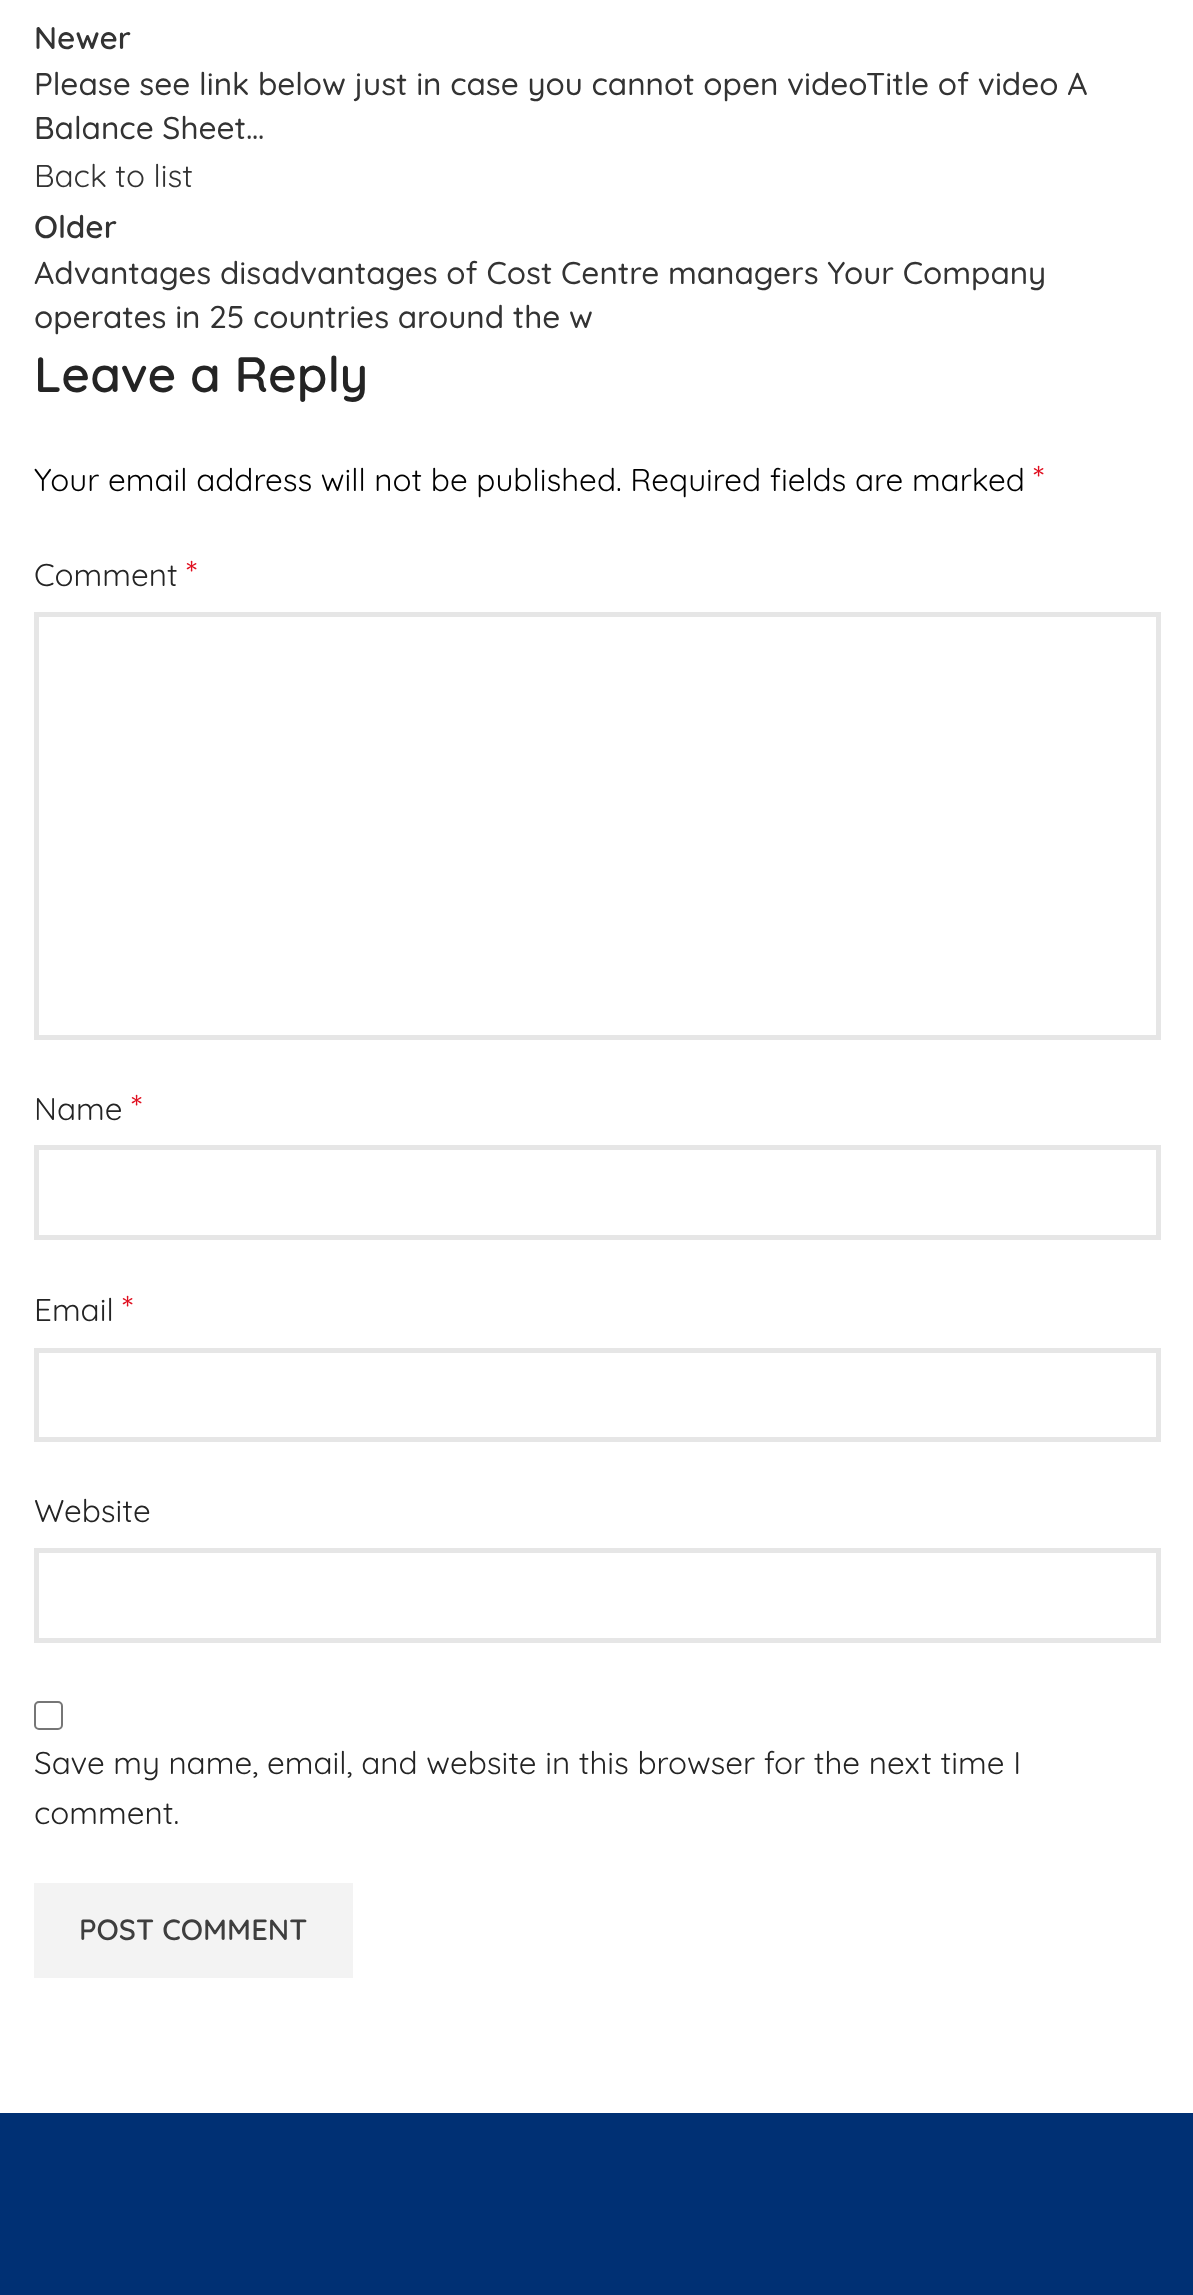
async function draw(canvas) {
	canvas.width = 1193;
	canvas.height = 2295;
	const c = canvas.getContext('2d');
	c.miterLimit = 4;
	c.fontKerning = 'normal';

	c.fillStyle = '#fff';
	c.fillRect(0, 0, 1193, 2295);
	c.font = '600 31.5px Quicksand';
	c.fillStyle = '#333';
	c.fillText('Newer', 34, 49);
	c.font = '500 31.5px Quicksand';
	c.fillText('Please see link below just in case you cannot open videoTitle of video A', 34, 95);
	c.fillText('Balance Sheet…', 34, 139);
	c.font = '31.5px Quicksand';
	c.fillText('Back to list', 34, 187);
	c.font = '600 31.5px Quicksand';
	c.fillText('Older', 34, 238);
	c.font = '500 31.5px Quicksand';
	c.fillText('Advantages disadvantages of Cost Centre managers Your Company', 34, 284);
	c.fillText('operates in 25 countries around the w', 34, 328);
	c.font = '600 49.5px Quicksand';
	c.fillStyle = '#242424';
	c.fillText('Leave a Reply', 34, 392);
	c.font = '31.5px Quicksand';
	c.fillStyle = '#000';
	c.fillText('Your email address will not be published. Required fields are marked', 34, 491);
	c.font = '36px Quicksand';
	c.fillStyle = '#e01020';
	c.fillText('*', 1033, 491);
	c.font = '31.5px Quicksand';
	c.fillStyle = '#242424';
	c.fillText('Comment', 34, 586);
	c.font = '36px Quicksand';
	c.fillStyle = '#e01020';
	c.fillText('*', 186, 586);
	c.strokeStyle = '#e6e6e6';
	c.lineWidth = 5;
	c.strokeRect(36.5, 614.5, 1122, 423);
	c.font = '31.5px Quicksand';
	c.fillStyle = '#242424';
	c.fillText('Name', 34, 1120);
	c.font = '36px Quicksand';
	c.fillStyle = '#e01020';
	c.fillText('*', 131, 1120);
	c.strokeRect(36.5, 1147.5, 1122, 90);
	c.font = '31.5px Quicksand';
	c.fillStyle = '#242424';
	c.fillText('Email', 34, 1321);
	c.font = '36px Quicksand';
	c.fillStyle = '#e01020';
	c.fillText('*', 122, 1321);
	c.strokeRect(36.5, 1350.5, 1122, 89);
	c.font = '31.5px Quicksand';
	c.fillStyle = '#242424';
	c.fillText('Website', 34, 1522);
	c.strokeRect(36.5, 1550.5, 1122, 90);
	c.beginPath();
	c.roundRect(35, 1702, 27, 27, 4);
	c.strokeStyle = '#767676';
	c.lineWidth = 2;
	c.stroke();
	c.fillText('Save my name, email, and website in this browser for the next time I', 34, 1774);
	c.fillText('comment.', 34, 1824);
	c.fillStyle = '#f3f3f3';
	c.fillRect(34, 1883, 319, 95);
	c.font = '600 29.25px Quicksand';
	c.fillStyle = '#3e3e3e';
	c.fillText('POST COMMENT', 79, 1940);
	c.fillStyle = '#003074';
	c.fillRect(0, 2113, 1193, 182);
}

draw(document.querySelector('canvas'));
